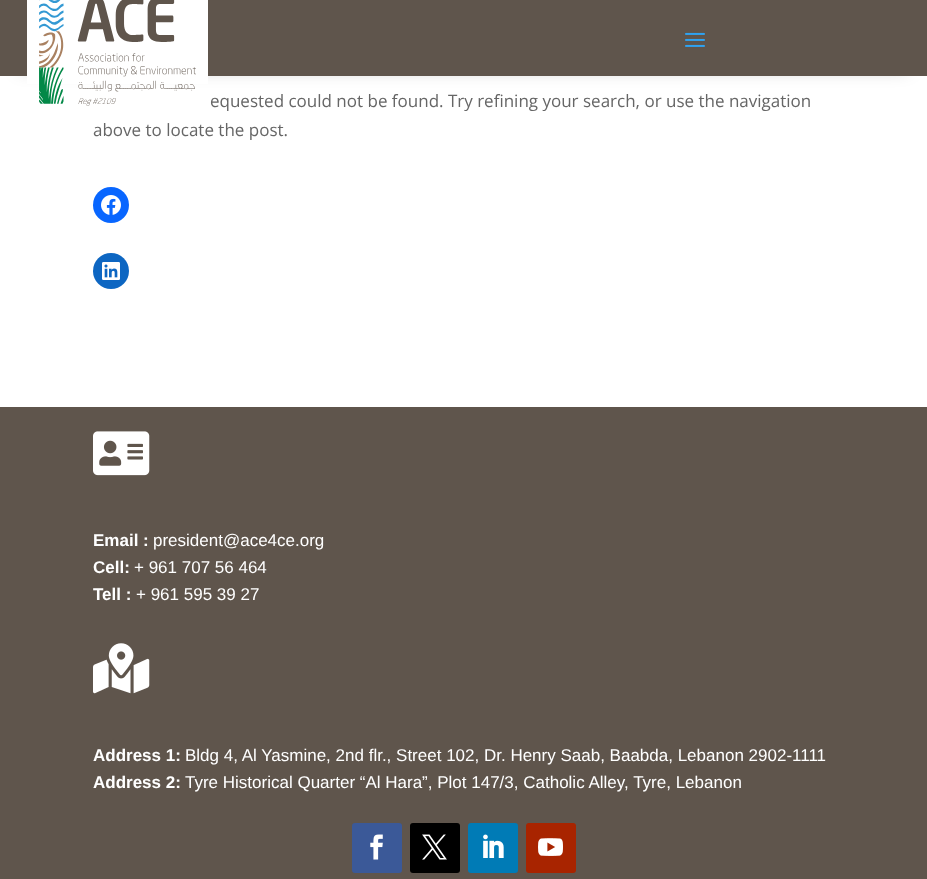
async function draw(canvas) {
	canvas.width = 927;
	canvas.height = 879;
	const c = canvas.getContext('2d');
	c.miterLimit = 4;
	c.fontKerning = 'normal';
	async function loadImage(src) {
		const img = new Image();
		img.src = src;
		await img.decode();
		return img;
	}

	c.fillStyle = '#fff';
	c.fillRect(0, 0, 927, 879);
	c.fillStyle = '#0000004d';
	c.filter = 'blur(9px)';
	c.beginPath();
	c.rect(20, 32, 887, 36);
	c.fill();
	c.filter = 'none';
	c.fillStyle = '#5f554c';
	c.fillRect(0, 0, 927, 76);
	c.fillStyle = '#fff';
	c.fillRect(27, 0, 181, 84);
	c.drawImage(await loadImage('img1.png'), 39, 0, 157, 106);
	c.drawImage(await loadImage('img2.png'), 685, 32, 20, 15);
	c.font = '17px Open Sans';
	c.fillStyle = '#666';
	c.fillText('equested could not be found. Try refining your search, or use the navigation', 210, 107);
	c.fillText('above to locate the post.', 93, 136);
	c.fillStyle = '#0866ff';
	c.beginPath();
	c.arc(111, 205, 18, 0, 2 * Math.PI);
	c.fill();
	c.drawImage(await loadImage('img3.png'), 101, 195, 20, 20);
	c.fillStyle = '#0d66c2';
	c.beginPath();
	c.arc(111, 271, 18, 0, 2 * Math.PI);
	c.fill();
	c.drawImage(await loadImage('img4.png'), 102, 262, 18, 18);
	c.fillStyle = '#5f554c';
	c.fillRect(0, 407, 927, 472);
	c.drawImage(await loadImage('img5.png'), 93, 431, 57, 45);
	c.font = 'bold 17px Liberation Sans';
	c.fillStyle = '#fff';
	c.fillText('Email :', 93, 546);
	c.font = '17px Liberation Sans';
	c.fillText('president@ace4ce.org', 153, 546);
	c.font = 'bold 17px Liberation Sans';
	c.fillText('Cell:', 93, 573);
	c.font = '17px Liberation Sans';
	c.fillText('+ 961 707 56 464', 134, 573);
	c.font = 'bold 17px Liberation Sans';
	c.fillText('Tell :', 93, 600);
	c.font = '17px Liberation Sans';
	c.fillText('+ 961 595 39 27', 136, 600);
	c.drawImage(await loadImage('img6.png'), 93, 643, 57, 51);
	c.font = 'bold 17px Liberation Sans';
	c.fillText('Address 1:', 93, 761);
	c.font = '17px Liberation Sans';
	c.fillText('Bldg 4, Al Yasmine, 2nd flr., Street 102, Dr. Henry Saab, Baabda, Lebanon 2902-1111', 185, 761);
	c.font = 'bold 17px Liberation Sans';
	c.fillText('Address 2:', 93, 788);
	c.font = '17px Liberation Sans';
	c.fillText('Tyre Historical Quarter “Al Hara”, Plot 147/3, Catholic Alley, Tyre, Lebanon', 185, 788);
	c.fillStyle = '#3b5998';
	c.beginPath();
	c.roundRect(352, 823, 50, 50, 3);
	c.fill();
	c.drawImage(await loadImage('img7.png'), 370, 834, 13, 26);
	c.fillStyle = '#000';
	c.beginPath();
	c.roundRect(410, 823, 50, 50, 3);
	c.fill();
	c.drawImage(await loadImage('img8.png'), 422, 834, 25, 26);
	c.fillStyle = '#007bb6';
	c.beginPath();
	c.roundRect(468, 823, 50, 50, 3);
	c.fill();
	c.drawImage(await loadImage('img9.png'), 483, 834, 21, 24);
	c.fillStyle = '#a82400';
	c.beginPath();
	c.roundRect(526, 823, 50, 50, 3);
	c.fill();
	c.drawImage(await loadImage('img10.png'), 538, 838, 25, 18);
}

draw(document.querySelector('canvas'));
